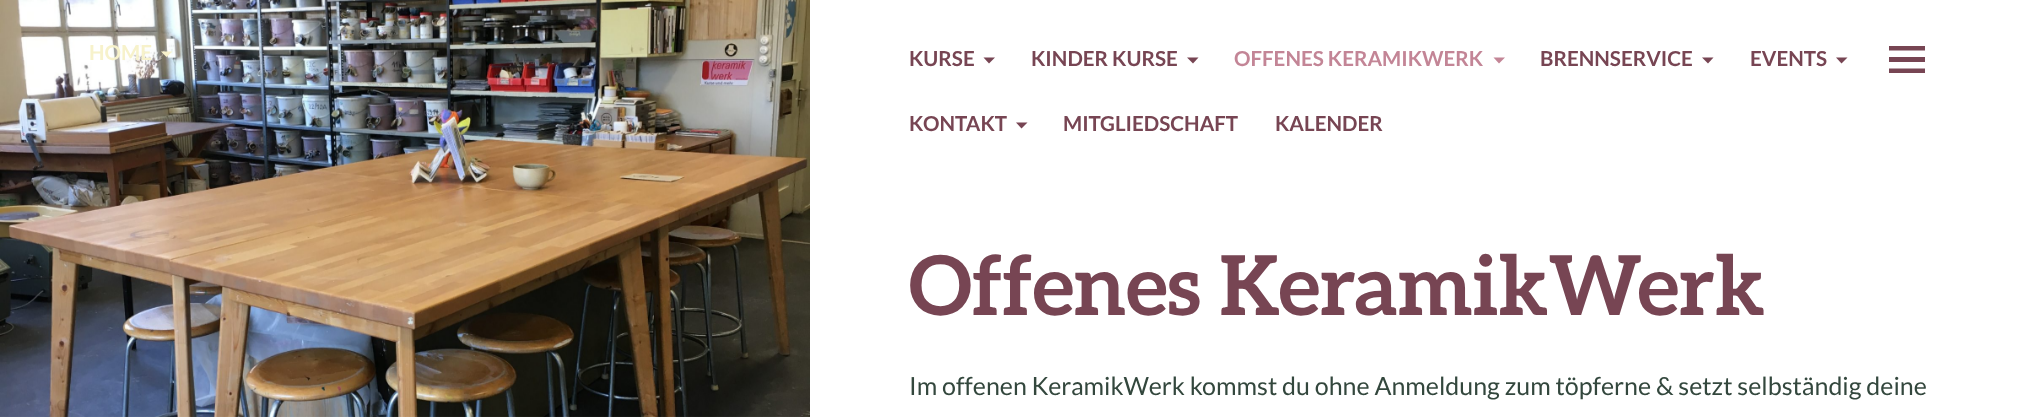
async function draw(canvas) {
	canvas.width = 2026;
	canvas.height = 417;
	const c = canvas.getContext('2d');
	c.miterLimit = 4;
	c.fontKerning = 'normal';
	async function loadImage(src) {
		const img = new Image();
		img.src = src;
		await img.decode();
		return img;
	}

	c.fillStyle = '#fff';
	c.fillRect(0, 0, 2026, 417);
	c.drawImage(await loadImage('img1.png'), 0, 0, 810, 417);
	c.font = 'bold 20.6px Lato';
	c.fillStyle = '#f7f2cb';
	c.fillText('HOME', 89, 60);
	c.beginPath();
	c.moveTo(161, 51.5);
	c.lineTo(166.5, 57);
	c.lineTo(172.5, 51.5);
	c.closePath();
	c.fill();
	c.fillStyle = '#774553';
	c.fillText('KURSE', 909, 66);
	c.beginPath();
	c.moveTo(983.5, 57.5);
	c.lineTo(989, 63.5);
	c.lineTo(995, 57.5);
	c.closePath();
	c.fill();
	c.fillText('KINDER KURSE', 1031, 66);
	c.beginPath();
	c.moveTo(1187, 57.5);
	c.lineTo(1193, 63.5);
	c.lineTo(1198.5, 57.5);
	c.closePath();
	c.fill();
	c.fillStyle = '#c38596';
	c.fillText('OFFENES KERAMIKWERK', 1234, 66);
	c.beginPath();
	c.moveTo(1493.5, 57.5);
	c.lineTo(1499, 63.5);
	c.lineTo(1505, 57.5);
	c.closePath();
	c.fill();
	c.fillStyle = '#774553';
	c.fillText('BRENNSERVICE', 1540, 66);
	c.beginPath();
	c.moveTo(1702, 57.5);
	c.lineTo(1708, 63.5);
	c.lineTo(1713.5, 57.5);
	c.closePath();
	c.fill();
	c.fillText('EVENTS', 1750, 66);
	c.beginPath();
	c.moveTo(1836, 57.5);
	c.lineTo(1841.5, 63.5);
	c.lineTo(1847.5, 57.5);
	c.closePath();
	c.fill();
	c.fillText('KONTAKT', 909, 131);
	c.beginPath();
	c.moveTo(1016, 122.5);
	c.lineTo(1021.5, 128.5);
	c.lineTo(1027.5, 122.5);
	c.closePath();
	c.fill();
	c.fillText('MITGLIEDSCHAFT', 1063, 131);
	c.fillText('KALENDER', 1275, 131);
	c.beginPath();
	c.moveTo(1925, 46);
	c.lineTo(1925, 50.5);
	c.lineTo(1889, 50.5);
	c.lineTo(1889, 46);
	c.closePath();
	c.moveTo(1889, 57);
	c.lineTo(1925, 57);
	c.lineTo(1925, 62);
	c.lineTo(1889, 62);
	c.closePath();
	c.moveTo(1889, 68.5);
	c.lineTo(1925, 68.5);
	c.lineTo(1925, 73);
	c.lineTo(1889, 73);
	c.closePath();
	c.fill();
	c.font = 'bold 82.5px Aleo';
	c.fillText('Offenes KeramikWerk', 909, 315);
	c.font = '25px Lato';
	c.fillStyle = '#33473d';
	c.fillText('Im offenen KeramikWerk kommst du ohne Anmeldung zum töpferne & setzt selbständig deine', 909, 395);
}

draw(document.querySelector('canvas'));
